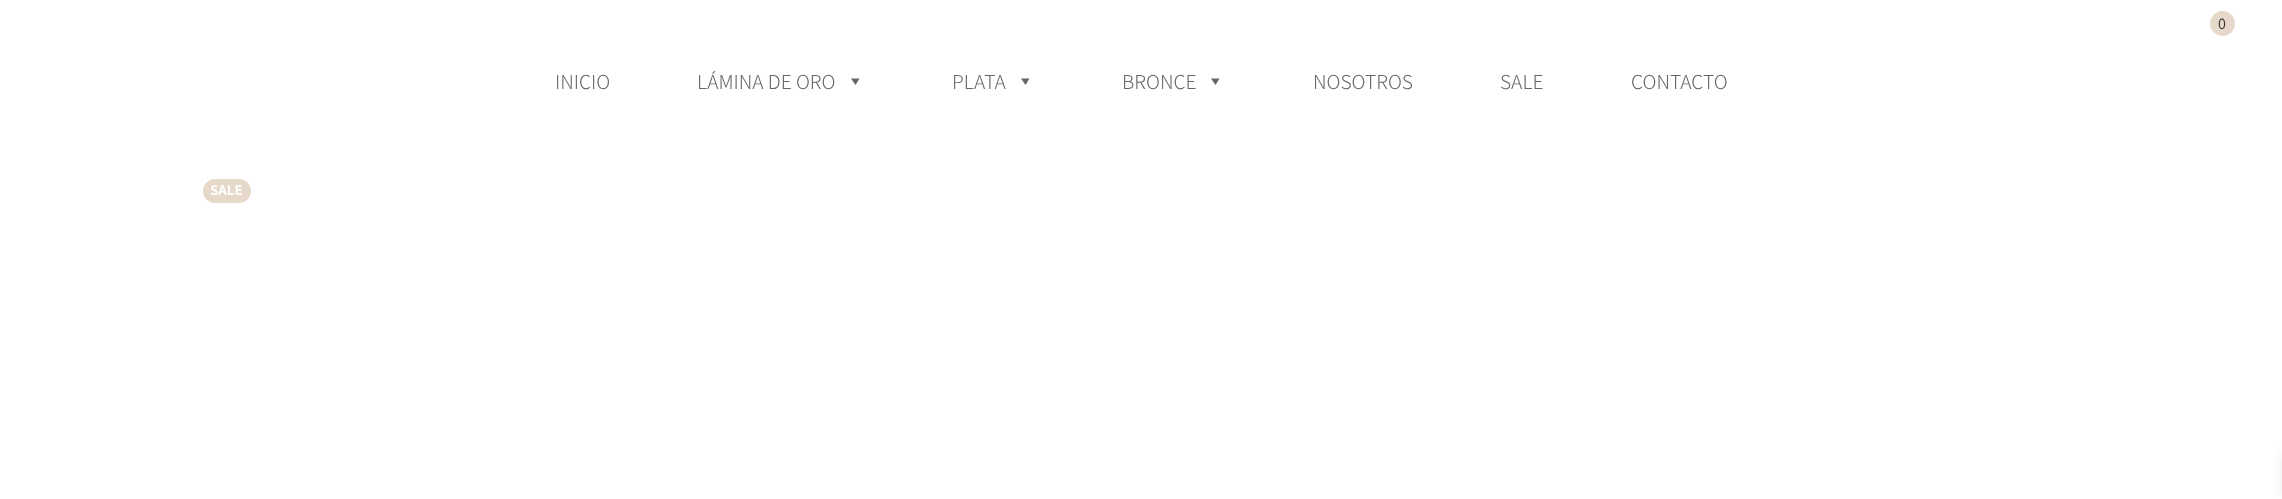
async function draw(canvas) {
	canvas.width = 2282;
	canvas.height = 499;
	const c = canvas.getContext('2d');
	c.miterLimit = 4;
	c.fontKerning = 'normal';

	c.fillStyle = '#fff';
	c.fillRect(0, 0, 2282, 499);
	c.fillStyle = '#e6d9c9';
	c.beginPath();
	c.arc(2222.5, 23.5, 12.5, 0, 2 * Math.PI);
	c.fill();
	c.font = '16px Assistant';
	c.fillStyle = '#333';
	c.fillText('0', 2218, 29);
	c.fillStyle = '#0000001a';
	c.filter = 'blur(6px)';
	c.beginPath();
	c.rect(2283, 455, 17, 39);
	c.fill();
	c.filter = 'none';
	c.font = '300 21.25px Assistant';
	c.fillStyle = '#666';
	c.fillText('INICIO', 555, 89);
	c.fillText('LÁMINA DE ORO', 697, 89);
	c.beginPath();
	c.moveTo(859.5, 78.5);
	c.lineTo(855.5, 85);
	c.lineTo(851, 78.5);
	c.closePath();
	c.fill();
	c.fillText('PLATA', 952, 89);
	c.beginPath();
	c.moveTo(1029.5, 78.5);
	c.lineTo(1025.5, 85);
	c.lineTo(1021, 78.5);
	c.closePath();
	c.fill();
	c.fillText('BRONCE', 1122, 89);
	c.beginPath();
	c.moveTo(1219.5, 78.5);
	c.lineTo(1215.5, 85);
	c.lineTo(1211, 78.5);
	c.closePath();
	c.fill();
	for (const [text, x, y] of [
		['NOSOTROS', 1313, 89],
		['SALE', 1500, 89],
		['CONTACTO', 1631, 89],
	]) {
		c.fillText(text, x, y);
	}
	c.fillStyle = '#e6d9c9';
	c.beginPath();
	c.roundRect(203, 179, 48, 24, 12);
	c.fill();
	c.font = 'bold 15px Assistant';
	c.fillStyle = '#fff';
	c.fillText('SALE', 210, 195);
}

draw(document.querySelector('canvas'));
